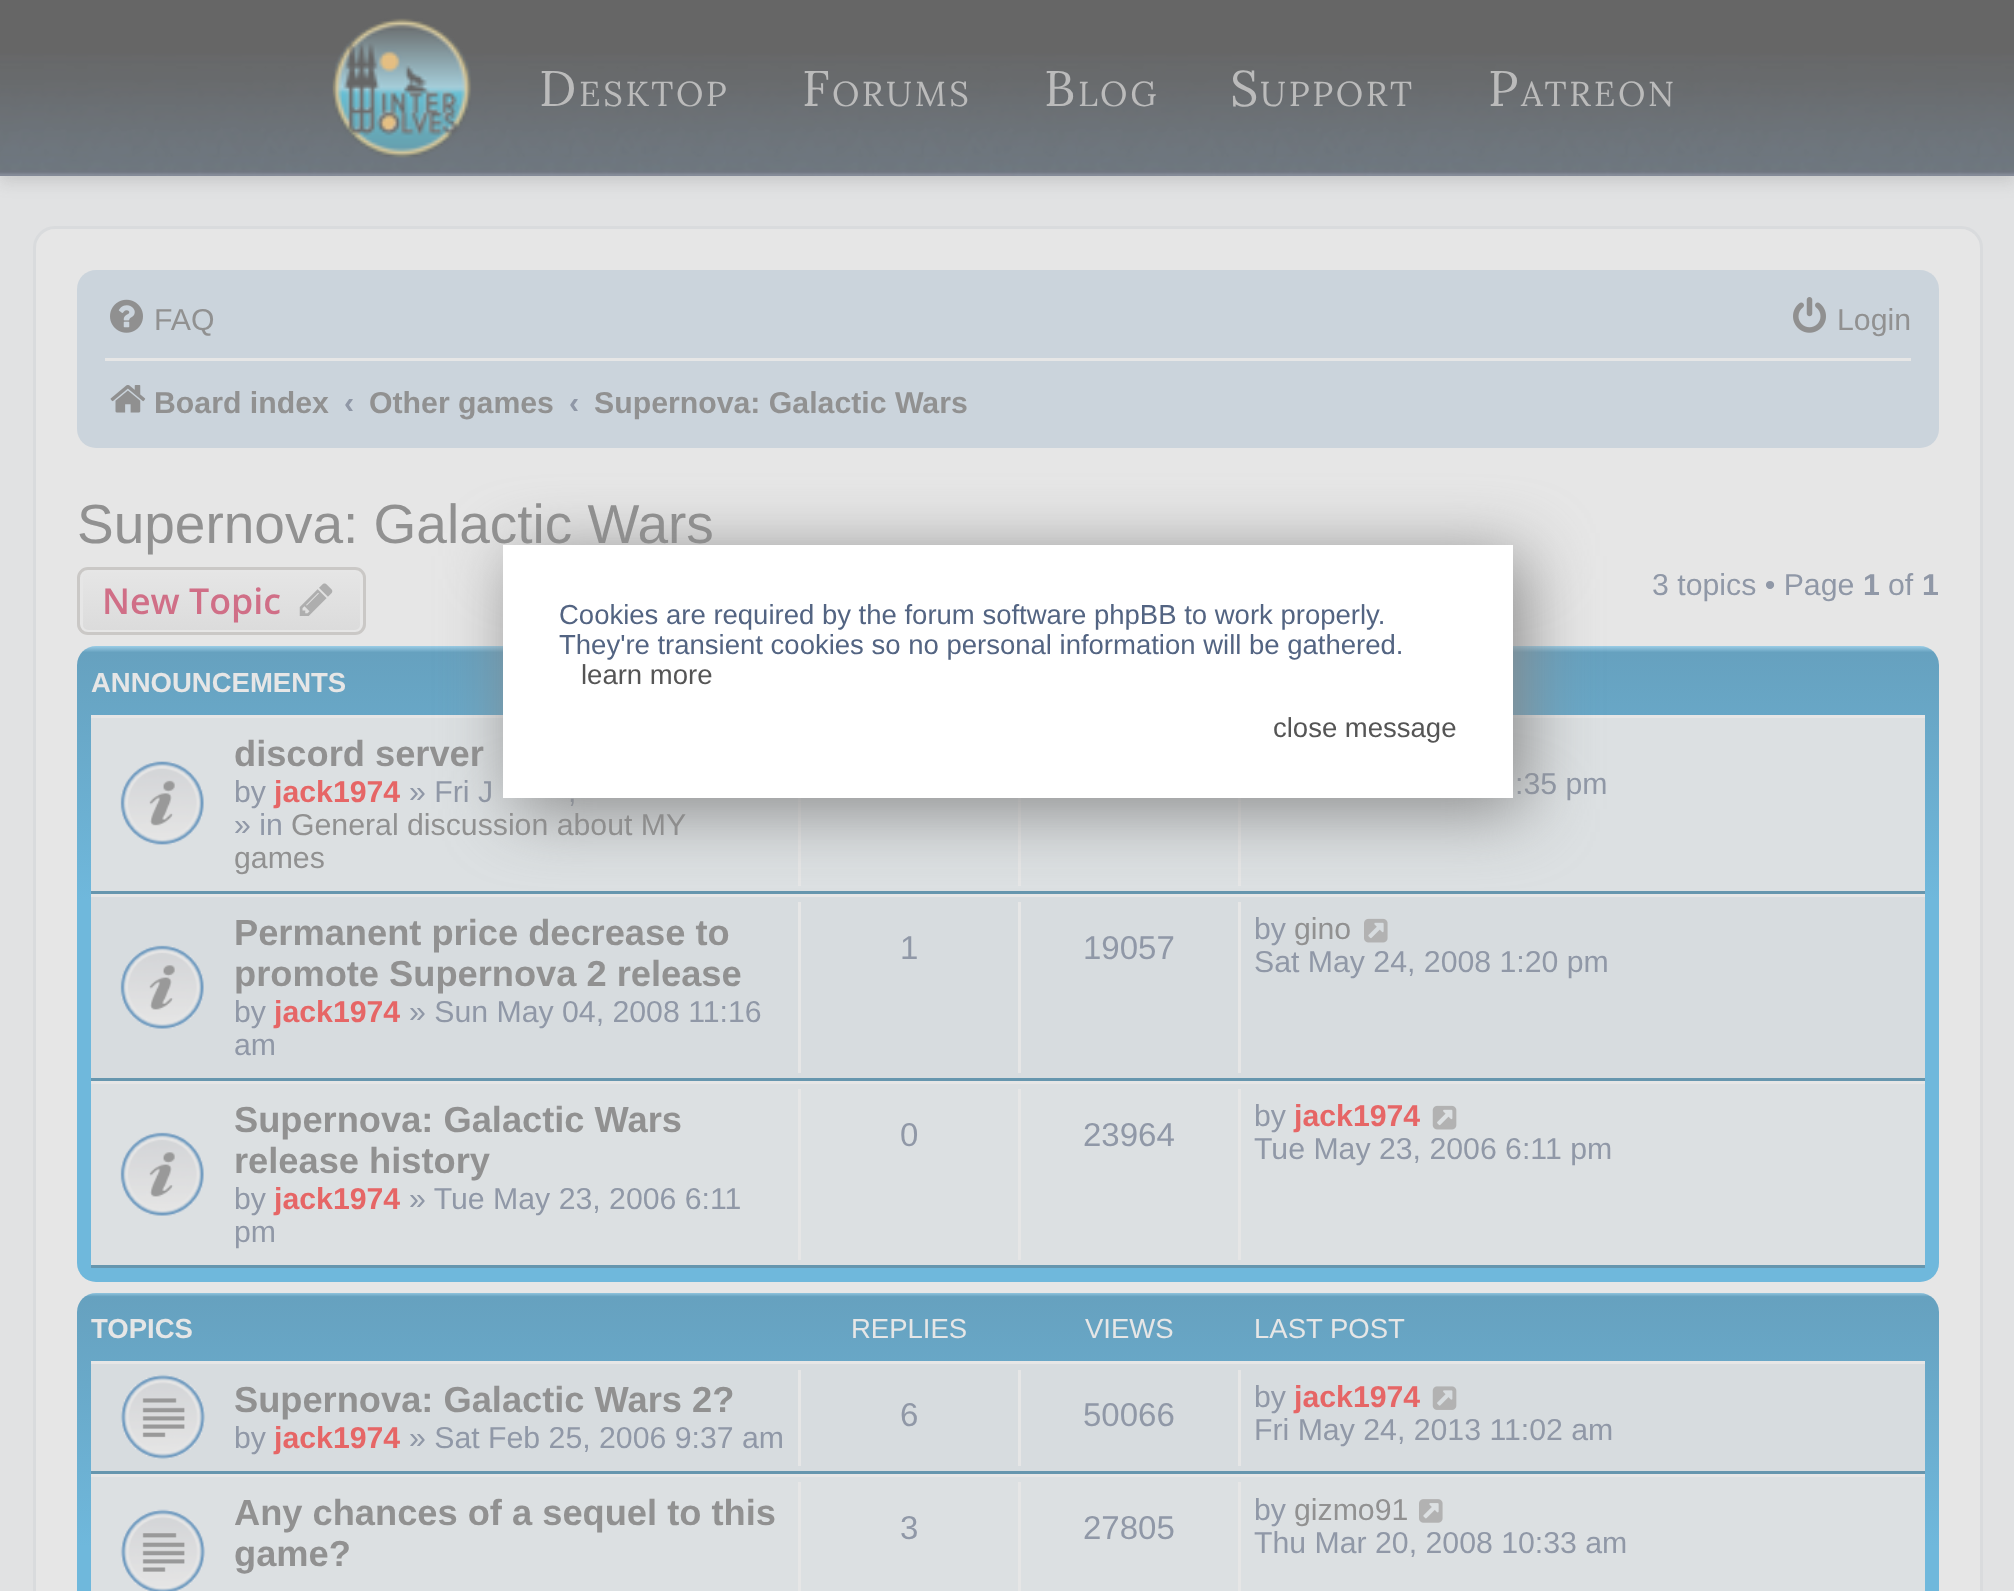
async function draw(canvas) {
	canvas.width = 2014;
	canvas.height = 1591;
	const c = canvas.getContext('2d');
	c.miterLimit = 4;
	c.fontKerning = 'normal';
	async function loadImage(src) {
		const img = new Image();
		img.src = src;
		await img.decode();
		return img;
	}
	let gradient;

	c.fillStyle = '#e1e2e3';
	c.fillRect(0, 0, 2014, 1591);
	c.fillStyle = '#66666633';
	c.filter = 'blur(8px)';
	c.beginPath();
	c.rect(0, 6, 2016, 176);
	c.fill();
	c.filter = 'none';
	c.drawImage(await loadImage('img1.png'), 0, 0, 2014, 176);
	c.drawImage(await loadImage('img2.png'), 332, 18, 140, 140);
	c.letterSpacing = '2.75px';
	c.font = '50px Lora';
	c.fillStyle = '#bbb';
	c.fillText('D', 539, 106);
	c.font = '34.5px Lora';
	c.fillText('ESKTOP', 579, 106);
	c.font = '50px Lora';
	c.fillText('F', 802, 106);
	c.font = '34.5px Lora';
	c.fillText('ORUMS', 832, 106);
	c.font = '50px Lora';
	c.fillText('B', 1044, 106);
	c.font = '34.5px Lora';
	c.fillText('LOG', 1078, 106);
	c.font = '50px Lora';
	c.fillText('S', 1230, 106);
	c.font = '34.5px Lora';
	c.fillText('UPPORT', 1260, 106);
	c.font = '50px Lora';
	c.fillText('P', 1488, 106);
	c.font = '34.5px Lora';
	c.fillText('ATREON', 1521, 106);
	c.fillStyle = '#e6e6e6';
	c.beginPath();
	c.roundRect(34.5, 227.5, 1947, 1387, 20.5);
	c.fill();
	c.strokeStyle = '#d9dbdd';
	c.lineWidth = 3;
	c.stroke();
	c.fillStyle = '#cbd4dc';
	c.beginPath();
	c.roundRect(77, 270, 1862, 178, 19);
	c.fill();
	c.drawImage(await loadImage('img3.png'), 110, 299, 33, 34);
	c.letterSpacing = '0px';
	c.font = '30.25px Liberation Sans';
	c.fillStyle = '#919191';
	c.fillText('FAQ', 154, 330);
	c.drawImage(await loadImage('img4.png'), 1793, 297, 33, 36);
	c.fillText('Login', 1837, 330);
	c.fillStyle = '#e6e6e6';
	c.fillRect(105, 358, 1806, 3);
	c.drawImage(await loadImage('img5.png'), 110, 385, 36, 28);
	c.font = 'bold 30.25px Liberation Sans';
	c.fillStyle = '#919191';
	c.fillText('Board index', 154, 413);
	c.fillStyle = '#9098a7';
	c.fillText('‹', 344, 413);
	c.fillStyle = '#919191';
	c.fillText('Other games', 369, 413);
	c.fillStyle = '#9098a7';
	c.fillText('‹', 569, 413);
	c.fillStyle = '#919191';
	c.fillText('Supernova: Galactic Wars', 594, 413);
	c.font = '55px Liberation Sans';
	c.fillText('Supernova: Galactic Wars', 77, 543);
	c.save();
	c.beginPath();
	c.roundRect(77, 567, 289, 68, 11);
	c.clip();
	gradient = c.createLinearGradient(221, 569, 221, 633);
	gradient.addColorStop(0, '#e6e6e6');
	gradient.addColorStop(1, '#dbdbdb');
	c.fillStyle = gradient;
	c.fillRect(77, 569, 289, 64);
	c.restore();
	c.beginPath();
	c.roundRect(81.5, 570.5, 280, 61, 6.5);
	c.strokeStyle = '#e6e6e6';
	c.stroke();
	c.beginPath();
	c.roundRect(78.5, 568.5, 286, 65, 9.5);
	c.strokeStyle = '#cac8c6';
	c.stroke();
	c.font = '600 35.75px Open Sans';
	c.fillStyle = '#d06f87';
	c.fillText('New Topic', 102, 614);
	c.drawImage(await loadImage('img6.png'), 299, 583, 34, 33);
	c.font = '30.25px Liberation Sans';
	c.fillStyle = '#9098a7';
	c.fillText('3 topics • Page', 1652, 595);
	c.font = 'bold 30.25px Liberation Sans';
	c.fillText('1', 1863, 595);
	c.font = '30.25px Liberation Sans';
	c.fillText('of', 1888, 595);
	c.font = 'bold 30.25px Liberation Sans';
	c.fillText('1', 1922, 595);
	gradient = c.createLinearGradient(1008, 646, 1008, 1282);
	gradient.addColorStop(0, '#9bcde6');
	gradient.addColorStop(0.01, '#66a1bf');
	gradient.addColorStop(0.4, '#6fb8dc');
	gradient.addColorStop(1, '#6fb8dc');
	c.fillStyle = gradient;
	c.beginPath();
	c.roundRect(77, 646, 1862, 636, 19);
	c.fill();
	c.font = 'bold 27.5px Liberation Sans';
	c.fillStyle = '#e6e6e6';
	c.fillText('ANNOUNCEMENTS', 91, 692);
	for (const [x, y, w, h, color] of [
		[91, 718, 1834, 173, '#dce0e2'],
		[91, 715, 1834, 3, '#e6e6e6'],
		[91, 891, 1834, 3, '#6696ae'],
	]) {
		c.fillStyle = color;
		c.fillRect(x, y, w, h);
	}
	c.drawImage(await loadImage('img7.png'), 120, 761, 84, 84);
	c.font = 'bold 36.25px Liberation Sans';
	c.fillStyle = '#919191';
	c.fillText('discord server', 234, 766);
	c.font = '30.25px Liberation Sans';
	c.fillStyle = '#9098a7';
	c.fillText('by', 234, 802);
	c.font = 'bold 30.25px Liberation Sans';
	c.fillStyle = '#e66666';
	c.fillText('jack1974', 274, 802);
	c.font = '30.25px Liberation Sans';
	c.fillStyle = '#9098a7';
	for (const [text, x, y] of [
		['» Fri J', 409, 802],
		[',', 568, 802],
		['» in', 234, 835],
	]) {
		c.fillText(text, x, y);
	}
	c.fillStyle = '#919191';
	c.fillText('General discussion about MY', 291, 835);
	c.fillText('games', 234, 868);
	c.fillStyle = '#e6e6e6';
	c.fillRect(1238, 798, 3, 88);
	c.fillStyle = '#9098a7';
	c.fillText(':35 pm', 1515, 794);
	for (const [x, y, w, h, color] of [
		[798, 798, 3, 88, '#e6e6e6'],
		[1018, 798, 3, 88, '#e6e6e6'],
		[91, 897, 1834, 181, '#d7dcdf'],
		[91, 894, 1834, 3, '#e6e6e6'],
		[91, 1078, 1834, 3, '#6696ae'],
	]) {
		c.fillStyle = color;
		c.fillRect(x, y, w, h);
	}
	c.drawImage(await loadImage('img8.png'), 120, 945, 84, 84);
	c.font = 'bold 36.25px Liberation Sans';
	c.fillStyle = '#919191';
	c.fillText('Permanent price decrease to', 234, 945);
	c.fillText('promote Supernova 2 release', 234, 986);
	c.font = '30.25px Liberation Sans';
	c.fillStyle = '#9098a7';
	c.fillText('by', 234, 1022);
	c.font = 'bold 30.25px Liberation Sans';
	c.fillStyle = '#e66666';
	c.fillText('jack1974', 274, 1022);
	c.font = '30.25px Liberation Sans';
	c.fillStyle = '#9098a7';
	c.fillText('» Sun May 04, 2008 11:16', 409, 1022);
	c.fillText('am', 234, 1055);
	c.fillStyle = '#e6e6e6';
	c.fillRect(798, 902, 3, 171);
	c.font = '33px Liberation Sans';
	c.fillStyle = '#9098a7';
	c.fillText('1', 900, 959);
	c.fillStyle = '#e6e6e6';
	c.fillRect(1018, 902, 3, 171);
	c.fillStyle = '#9098a7';
	c.fillText('19057', 1083, 959);
	c.fillStyle = '#e6e6e6';
	c.fillRect(1238, 902, 3, 171);
	c.font = '30.25px Liberation Sans';
	c.fillStyle = '#9098a7';
	c.fillText('by', 1254, 939);
	c.fillStyle = '#919191';
	c.fillText('gino', 1294, 939);
	c.drawImage(await loadImage('img9.png'), 1364, 918, 24, 25);
	c.fillStyle = '#9098a7';
	c.fillText('Sat May 24, 2008 1:20 pm', 1254, 972);
	for (const [x, y, w, h, color] of [
		[91, 1084, 1834, 181, '#dce0e2'],
		[91, 1081, 1834, 3, '#e6e6e6'],
		[91, 1265, 1834, 3, '#6696ae'],
	]) {
		c.fillStyle = color;
		c.fillRect(x, y, w, h);
	}
	c.drawImage(await loadImage('img10.png'), 120, 1132, 84, 84);
	c.font = 'bold 36.25px Liberation Sans';
	c.fillStyle = '#919191';
	c.fillText('Supernova: Galactic Wars', 234, 1132);
	c.fillText('release history', 234, 1173);
	c.font = '30.25px Liberation Sans';
	c.fillStyle = '#9098a7';
	c.fillText('by', 234, 1209);
	c.font = 'bold 30.25px Liberation Sans';
	c.fillStyle = '#e66666';
	c.fillText('jack1974', 274, 1209);
	c.font = '30.25px Liberation Sans';
	c.fillStyle = '#9098a7';
	c.fillText('» Tue May 23, 2006 6:11', 409, 1209);
	c.fillText('pm', 234, 1242);
	c.fillStyle = '#e6e6e6';
	c.fillRect(798, 1089, 3, 171);
	c.font = '33px Liberation Sans';
	c.fillStyle = '#9098a7';
	c.fillText('0', 900, 1146);
	c.fillStyle = '#e6e6e6';
	c.fillRect(1018, 1089, 3, 171);
	c.fillStyle = '#9098a7';
	c.fillText('23964', 1083, 1146);
	c.fillStyle = '#e6e6e6';
	c.fillRect(1238, 1089, 3, 171);
	c.font = '30.25px Liberation Sans';
	c.fillStyle = '#9098a7';
	c.fillText('by', 1254, 1126);
	c.font = 'bold 30.25px Liberation Sans';
	c.fillStyle = '#e66666';
	c.fillText('jack1974', 1294, 1126);
	c.drawImage(await loadImage('img11.png'), 1432, 1105, 25, 25);
	c.font = '30.25px Liberation Sans';
	c.fillStyle = '#9098a7';
	c.fillText('Tue May 23, 2006 6:11 pm', 1254, 1159);
	gradient = c.createLinearGradient(1008, 1292, 1008, 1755);
	gradient.addColorStop(0, '#9bcde6');
	gradient.addColorStop(0.01, '#66a1bf');
	gradient.addColorStop(0.55, '#6fb8dc');
	gradient.addColorStop(1, '#6fb8dc');
	c.fillStyle = gradient;
	c.beginPath();
	c.roundRect(77, 1293, 1862, 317, 19);
	c.fill();
	c.font = 'bold 27.5px Liberation Sans';
	c.fillStyle = '#e6e6e6';
	c.fillText('TOPICS', 91, 1338);
	c.font = '27.5px Liberation Sans';
	for (const [text, x, y] of [
		['REPLIES', 851, 1338],
		['VIEWS', 1085, 1338],
		['LAST POST', 1254, 1338],
	]) {
		c.fillText(text, x, y);
	}
	for (const [x, y, w, h, color] of [
		[91, 1364, 1834, 107, '#d7dcdf'],
		[91, 1361, 1834, 3, '#e6e6e6'],
		[91, 1471, 1834, 3, '#6696ae'],
	]) {
		c.fillStyle = color;
		c.fillRect(x, y, w, h);
	}
	c.drawImage(await loadImage('img12.png'), 120, 1374, 86, 86);
	c.font = 'bold 36.25px Liberation Sans';
	c.fillStyle = '#919191';
	c.fillText('Supernova: Galactic Wars 2?', 234, 1412);
	c.font = '30.25px Liberation Sans';
	c.fillStyle = '#9098a7';
	c.fillText('by', 234, 1448);
	c.font = 'bold 30.25px Liberation Sans';
	c.fillStyle = '#e66666';
	c.fillText('jack1974', 274, 1448);
	c.font = '30.25px Liberation Sans';
	c.fillStyle = '#9098a7';
	c.fillText('» Sat Feb 25, 2006 9:37 am', 409, 1448);
	c.fillStyle = '#e6e6e6';
	c.fillRect(798, 1370, 3, 96);
	c.font = '33px Liberation Sans';
	c.fillStyle = '#9098a7';
	c.fillText('6', 900, 1426);
	c.fillStyle = '#e6e6e6';
	c.fillRect(1018, 1370, 3, 96);
	c.fillStyle = '#9098a7';
	c.fillText('50066', 1083, 1426);
	c.fillStyle = '#e6e6e6';
	c.fillRect(1238, 1370, 3, 96);
	c.font = '30.25px Liberation Sans';
	c.fillStyle = '#9098a7';
	c.fillText('by', 1254, 1407);
	c.font = 'bold 30.25px Liberation Sans';
	c.fillStyle = '#e66666';
	c.fillText('jack1974', 1294, 1407);
	c.drawImage(await loadImage('img13.png'), 1432, 1386, 25, 24);
	c.font = '30.25px Liberation Sans';
	c.fillStyle = '#9098a7';
	c.fillText('Fri May 24, 2013 11:02 am', 1254, 1440);
	c.fillStyle = '#dce0e2';
	c.fillRect(91, 1477, 1834, 114);
	c.fillStyle = '#e6e6e6';
	c.fillRect(91, 1474, 1834, 3);
	c.drawImage(await loadImage('img14.png'), 120, 1509, 86, 82);
	c.font = 'bold 36.25px Liberation Sans';
	c.fillStyle = '#919191';
	c.fillText('Any chances of a sequel to this', 234, 1525);
	c.fillText('game?', 234, 1566);
	c.fillStyle = '#e6e6e6';
	c.fillRect(798, 1482, 3, 109);
	c.font = '33px Liberation Sans';
	c.fillStyle = '#9098a7';
	c.fillText('3', 900, 1539);
	c.fillStyle = '#e6e6e6';
	c.fillRect(1018, 1482, 3, 109);
	c.fillStyle = '#9098a7';
	c.fillText('27805', 1083, 1539);
	c.fillStyle = '#e6e6e6';
	c.fillRect(1238, 1482, 3, 109);
	c.font = '30.25px Liberation Sans';
	c.fillStyle = '#9098a7';
	c.fillText('by', 1254, 1520);
	c.fillStyle = '#919191';
	c.fillText('gizmo91', 1294, 1520);
	c.drawImage(await loadImage('img15.png'), 1419, 1499, 24, 24);
	c.fillStyle = '#9098a7';
	c.fillText('Thu Mar 20, 2008 10:33 am', 1254, 1553);
	c.fillStyle = '#888';
	c.filter = 'blur(34.5px)';
	c.beginPath();
	c.rect(514, 556, 1010, 253);
	c.fill();
	c.filter = 'none';
	c.fillStyle = '#fff';
	c.fillRect(503, 545, 1010, 253);
	c.font = '27.5px Liberation Sans';
	c.fillStyle = '#536482';
	c.fillText('Cookies are required by the forum software phpBB to work properly.', 559, 624);
	c.fillText('They\'re transient cookies so no personal information will be gathered.', 559, 654);
	c.fillStyle = '#555';
	c.fillText('learn more', 581, 684);
	c.fillText('close message', 1273, 737);
}

draw(document.querySelector('canvas'));
